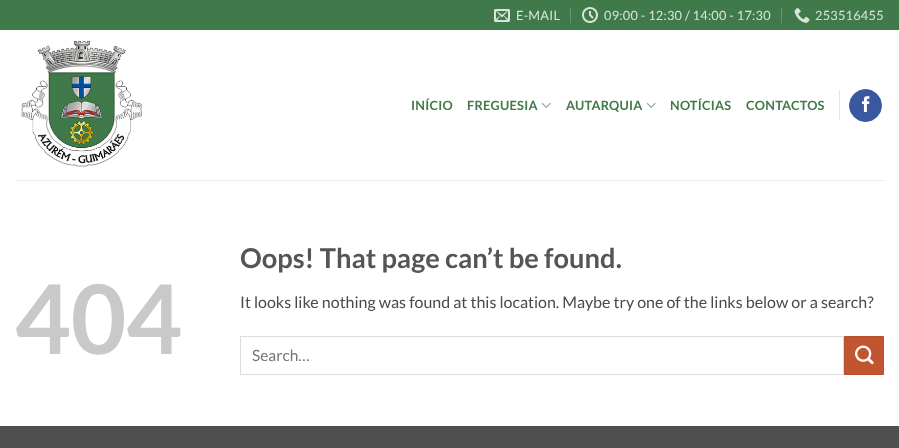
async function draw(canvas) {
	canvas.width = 899;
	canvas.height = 448;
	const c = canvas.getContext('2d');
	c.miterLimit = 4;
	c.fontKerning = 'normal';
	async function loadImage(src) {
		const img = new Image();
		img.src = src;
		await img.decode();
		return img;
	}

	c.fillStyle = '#fff';
	c.fillRect(0, 0, 899, 448);
	c.fillStyle = '#407a4a';
	c.fillRect(0, 0, 899, 30);
	c.drawImage(await loadImage('img1.png'), 494, 9, 16, 13);
	c.letterSpacing = '0.25px';
	c.font = '12.75px Lato';
	c.fillStyle = '#d9e4db';
	c.fillText('E-MAIL', 516, 20);
	c.fillStyle = '#66956e';
	c.fillRect(570, 8, 1, 15);
	c.drawImage(await loadImage('img2.png'), 582, 7, 16, 16);
	c.fillStyle = '#d9e4db';
	c.fillText('09:00 - 12:30 / 14:00 - 17:30', 604, 20);
	c.fillStyle = '#66956e';
	c.fillRect(781, 8, 1, 15);
	c.drawImage(await loadImage('img3.png'), 794, 8, 16, 15);
	c.fillStyle = '#d9e4db';
	c.fillText('253516455', 815, 20);
	c.drawImage(await loadImage('img4.png'), 21, 40, 121, 127);
	c.font = 'bold 12.75px Lato';
	c.fillStyle = '#407a4a';
	c.fillText('INÍCIO', 411, 110);
	c.fillText('FREGUESIA', 467, 110);
	c.drawImage(await loadImage('img5.png'), 541, 102, 10, 6);
	c.fillText('AUTARQUIA', 566, 110);
	c.drawImage(await loadImage('img5.png'), 646, 102, 10, 6);
	c.fillText('NOTÍCIAS', 670, 110);
	c.fillText('CONTACTOS', 746, 110);
	c.fillStyle = '#e6e6e6';
	c.fillRect(839, 90, 1, 30);
	c.fillStyle = '#3a589d';
	c.beginPath();
	c.arc(865.5, 105.5, 16, 0, 2 * Math.PI);
	c.fill();
	c.strokeStyle = '#3a589d';
	c.stroke();
	c.drawImage(await loadImage('img6.png'), 861, 96, 9, 16);
	c.fillStyle = '#ededed';
	c.fillRect(15, 180, 869, 1);
	c.letterSpacing = '0px';
	c.font = 'bold 96px Lato';
	c.fillStyle = '#c9c9c9';
	c.fillText('404', 15, 354);
	c.font = 'bold 27.25px Lato';
	c.fillStyle = '#555';
	c.fillText('Oops! That page can’t be found.', 240, 268);
	c.font = '16px Lato';
	c.fillStyle = '#4a4a4a';
	c.fillText('It looks like nothing was found at this location. Maybe try one of the links below or a search?', 240, 308);
	c.strokeStyle = '#ddd';
	c.strokeRect(240.5, 336.5, 603, 38);
	c.font = '15.5px Lato';
	c.fillStyle = '#757575';
	c.fillText('Search…', 252, 361);
	c.fillStyle = '#c05530';
	c.beginPath();
	c.rect(844.5, 336.5, 39, 38);
	c.fill();
	c.strokeStyle = '#b6512e';
	c.stroke();
	c.drawImage(await loadImage('img7.png'), 855, 345, 19, 20);
	c.fillStyle = '#4f4f4f';
	c.fillRect(0, 427, 899, 21);
	c.fillStyle = '#4b4b4b';
	c.fillRect(0, 426, 899, 1);
}

draw(document.querySelector('canvas'));
